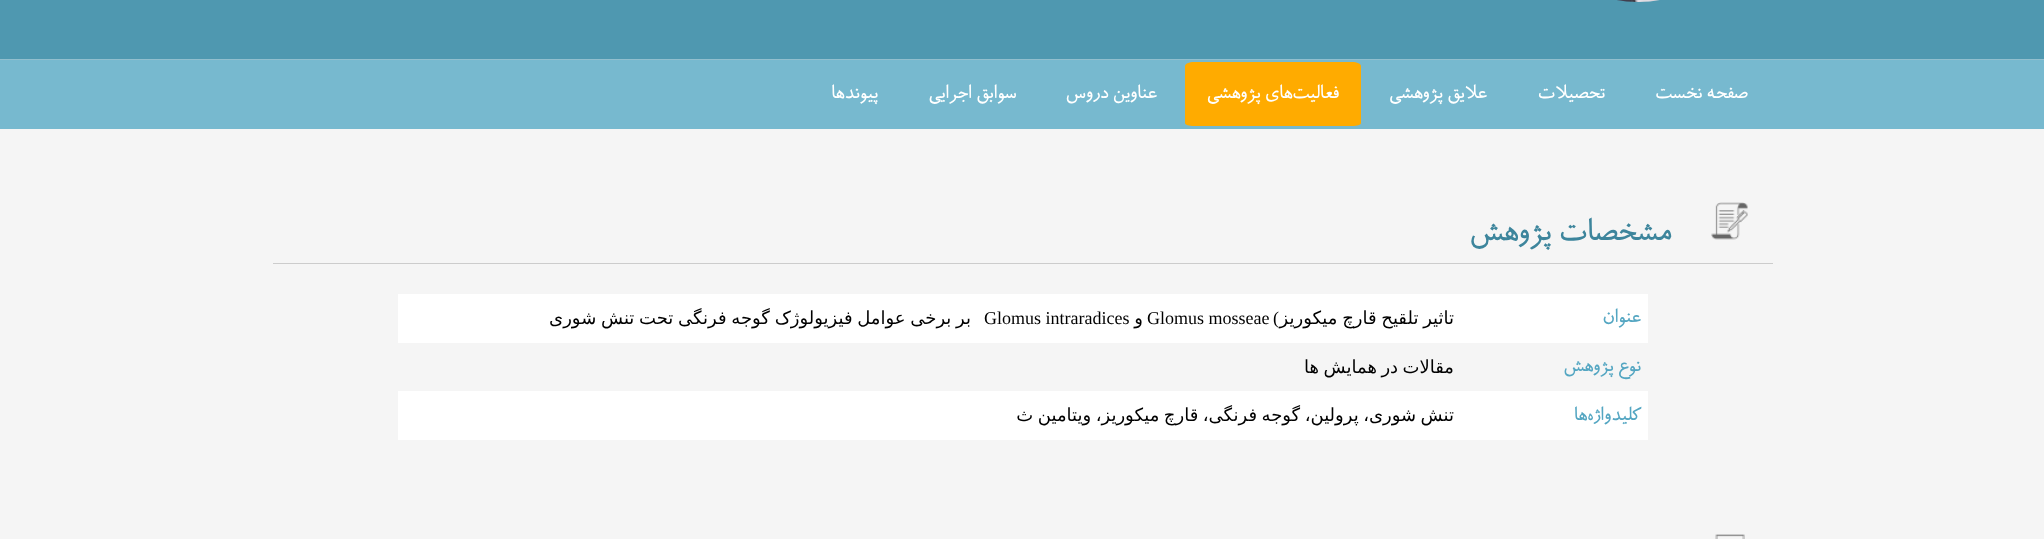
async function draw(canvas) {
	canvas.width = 2044;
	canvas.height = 539;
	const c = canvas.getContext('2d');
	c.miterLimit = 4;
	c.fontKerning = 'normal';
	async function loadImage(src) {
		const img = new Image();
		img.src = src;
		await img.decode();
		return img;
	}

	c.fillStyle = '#4f98b0';
	c.fillRect(0, 0, 2044, 539);
	c.drawImage(await loadImage('img1.png'), 1617, 0, 43, 2);
	c.fillStyle = '#77b9cf';
	c.fillRect(0, 60, 2044, 69);
	c.fillStyle = '#92bfce';
	c.fillRect(0, 59, 2044, 1);
	c.direction = 'rtl';
	c.font = '22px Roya';
	c.fillStyle = '#fff';
	for (const [text, x, y] of [
		['صفحه نخست', 1748, 98],
		['تحصیلات', 1605, 98],
		['علایق پژوهشی', 1487, 98],
	]) {
		c.fillText(text, x, y);
	}
	c.fillStyle = '#ffab00';
	c.beginPath();
	c.moveTo(1194, 62);
	c.lineTo(1352, 62);
	c.bezierCurveTo(1357, 62, 1361, 64, 1361, 66);
	c.lineTo(1361, 123);
	c.bezierCurveTo(1361, 125, 1357, 126, 1352, 126);
	c.lineTo(1194, 126);
	c.bezierCurveTo(1189, 126, 1185, 125, 1185, 123);
	c.lineTo(1185, 66);
	c.bezierCurveTo(1185, 64, 1189, 62, 1194, 62);
	c.closePath();
	c.fill();
	c.fillStyle = '#fff';
	for (const [text, x, y] of [
		['فعالیت‌های پژوهشی', 1339, 98],
		['عناوین دروس', 1157, 98],
		['سوابق اجرایی', 1016, 98],
		['پیوندها', 878, 98],
	]) {
		c.fillText(text, x, y);
	}
	c.fillStyle = '#f5f5f5';
	c.fillRect(0, 129, 2044, 410);
	c.fillStyle = '#ccc';
	c.fillRect(273, 263, 1500, 1);
	c.drawImage(await loadImage('img2.png'), 1711, 202, 37, 38);
	c.font = '36px Roya';
	c.fillStyle = '#3d859c';
	c.fillText('مشخصات پژوهش', 1671, 240);
	c.fillStyle = '#fff';
	c.fillRect(398, 294, 1250, 49);
	c.font = '22px Roya';
	c.fillStyle = '#54a6c2';
	c.fillText('عنوان', 1641, 322);
	c.font = '18px Liberation Serif';
	c.fillStyle = '#000';
	c.fillText(')', 1279, 324);
	c.wordSpacing = '-1px';
	c.font = '18px DejaVu Sans';
	c.fillText('تاثیر تلقیح قارچ میکوریز', 1454, 324);
	c.wordSpacing = '0px';
	c.direction = 'ltr';
	c.font = '18px Liberation Serif';
	c.fillText('Glomus mosseae', 1147, 324);
	c.direction = 'rtl';
	c.font = '18px DejaVu Sans';
	c.fillText('و', 1143, 324);
	c.direction = 'ltr';
	c.font = '18px Liberation Serif';
	c.fillText('Glomus intraradices', 984, 324);
	c.wordSpacing = '-1px';
	c.direction = 'rtl';
	c.font = '18px DejaVu Sans';
	c.fillText('بر برخی عوامل فیزیولوژک گوجه فرنگی تحت تنش شوری', 971, 324);
	c.wordSpacing = '0px';
	c.font = '22px Roya';
	c.fillStyle = '#54a6c2';
	c.fillText('نوع پژوهش', 1641, 371);
	c.wordSpacing = '-1.25px';
	c.font = '18px DejaVu Sans';
	c.fillStyle = '#000';
	c.fillText('مقالات در همایش ها', 1454, 373);
	c.fillStyle = '#fff';
	c.fillRect(398, 391, 1250, 49);
	c.wordSpacing = '0px';
	c.font = '22px Roya';
	c.fillStyle = '#54a6c2';
	c.fillText('کلیدواژه‌ها', 1641, 420);
	c.wordSpacing = '-1.25px';
	c.font = '18px DejaVu Sans';
	c.fillStyle = '#000';
	c.fillText('تنش شوری، پرولین، گوجه فرنگی، قارچ میکوریز، ویتامین ث', 1454, 421);
	c.drawImage(await loadImage('img3.png'), 1715, 534, 30, 5);
}

draw(document.querySelector('canvas'));
